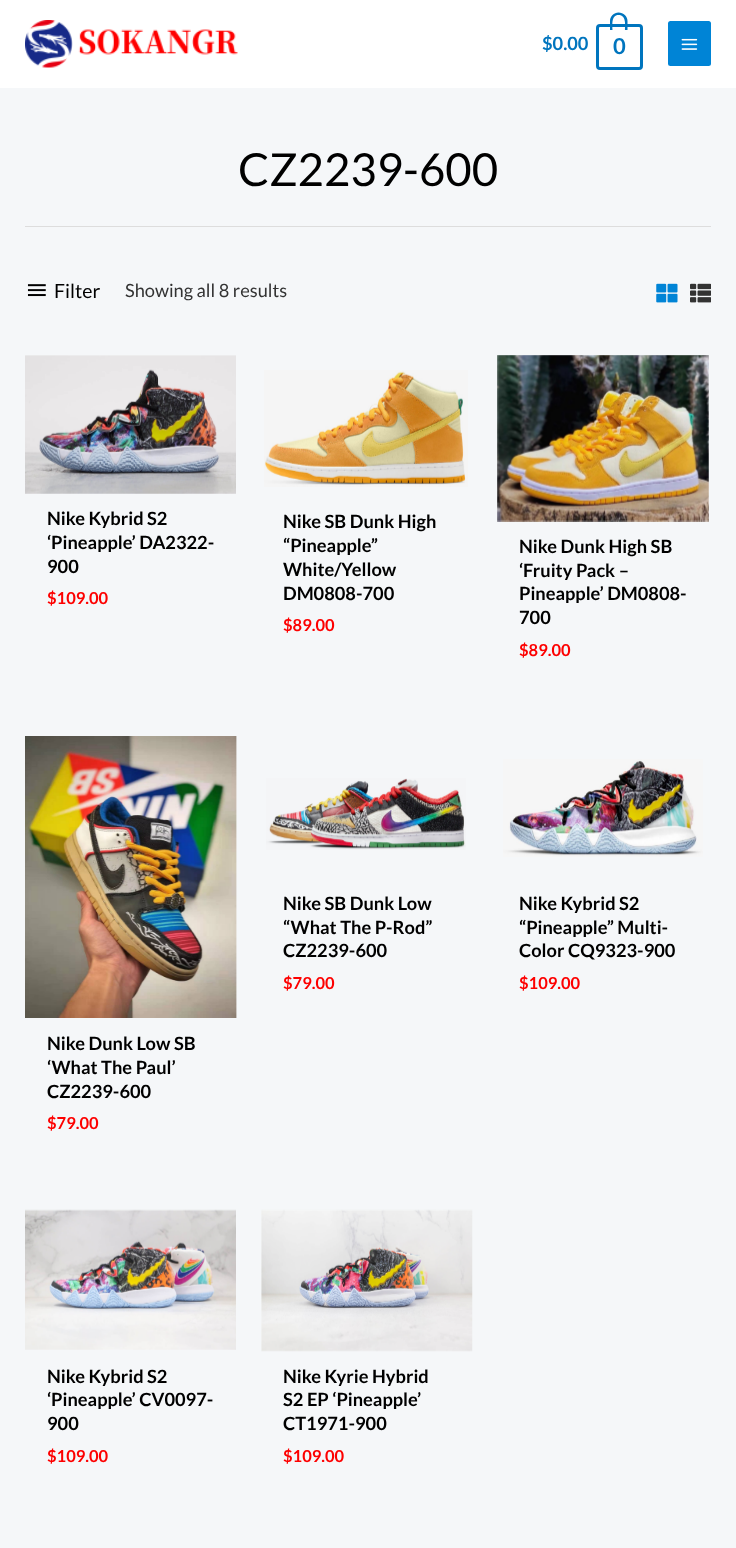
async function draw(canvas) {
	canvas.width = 736;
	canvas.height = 1548;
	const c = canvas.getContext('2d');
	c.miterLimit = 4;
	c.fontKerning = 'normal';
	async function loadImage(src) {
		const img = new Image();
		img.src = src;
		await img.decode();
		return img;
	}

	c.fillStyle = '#f5f7f9';
	c.fillRect(0, 0, 736, 1548);
	c.fillStyle = '#fff';
	c.fillRect(0, 0, 736, 88);
	c.drawImage(await loadImage('img1.png'), 25, 20, 213, 48);
	c.font = 'bold 18.25px Lato';
	c.fillStyle = '#0075be';
	c.fillText('$0.00', 542, 50);
	c.beginPath();
	c.roundRect(597.5, 25.5, 44, 43, 2.5);
	c.strokeStyle = '#0075be';
	c.lineWidth = 3;
	c.stroke();
	c.beginPath();
	c.moveTo(618.5, 12.5);
	c.bezierCurveTo(623.5, 12.5, 627.5, 16.5, 627.5, 21);
	c.lineTo(627.5, 30);
	c.lineTo(610, 30);
	c.lineTo(610, 21);
	c.bezierCurveTo(610, 16.5, 614, 12.5, 618.5, 12.5);
	c.closePath();
	c.moveTo(618.5, 15);
	c.bezierCurveTo(626.5, 15, 625, 25, 625, 30);
	c.lineTo(612.5, 30);
	c.bezierCurveTo(612.5, 25, 611, 15, 618.5, 15);
	c.closePath();
	c.fill('evenodd');
	c.font = 'bold 22px Lato';
	c.fillText('0', 613, 54);
	c.fillStyle = '#0084d6';
	c.beginPath();
	c.roundRect(668, 21, 43, 45, 2.5);
	c.fill();
	c.drawImage(await loadImage('img2.png'), 681, 38, 17, 12);
	c.fillStyle = '#ddd';
	c.fillRect(25, 226, 686, 1);
	c.font = '45.5px Lato';
	c.fillStyle = '#000';
	c.fillText('CZ2239-600', 238, 186);
	c.drawImage(await loadImage('img3.png'), 27, 284, 19, 13);
	c.font = '19.5px Lato';
	c.fillText('Filter', 54, 298);
	c.font = '18.25px Lato';
	c.fillStyle = '#333';
	c.fillText('Showing all 8 results', 125, 297);
	c.drawImage(await loadImage('img4.png'), 656, 283, 22, 20);
	c.drawImage(await loadImage('img5.png'), 690, 283, 21, 20);
	c.drawImage(await loadImage('img6.png'), 25, 355, 211, 139);
	c.font = 'bold 18.25px Lato';
	c.fillStyle = '#000';
	for (const [text, x, y] of [
		['Nike Kybrid S2', 47, 525],
		['‘Pineapple’ DA2322-', 47, 549],
		['900', 47, 573],
	]) {
		c.fillText(text, x, y);
	}
	c.font = 'bold 16.5px Lato';
	c.fillStyle = '#fd0000';
	c.fillText('$109.00', 47, 604);
	c.drawImage(await loadImage('img7.png'), 264, 370, 204, 117);
	c.font = 'bold 18.25px Lato';
	c.fillStyle = '#000';
	for (const [text, x, y] of [
		['Nike SB Dunk High', 283, 528],
		['“Pineapple”', 283, 552],
		['White/Yellow', 283, 576],
		['DM0808-700', 283, 600],
	]) {
		c.fillText(text, x, y);
	}
	c.font = 'bold 16.5px Lato';
	c.fillStyle = '#fd0000';
	c.fillText('$89.00', 283, 631);
	c.drawImage(await loadImage('img8.png'), 497, 355, 212, 167);
	c.font = 'bold 18.25px Lato';
	c.fillStyle = '#000';
	for (const [text, x, y] of [
		['Nike Dunk High SB', 519, 553],
		['‘Fruity Pack –', 519, 577],
		['Pineapple’ DM0808-', 519, 600],
		['700', 519, 624],
	]) {
		c.fillText(text, x, y);
	}
	c.font = 'bold 16.5px Lato';
	c.fillStyle = '#fd0000';
	c.fillText('$89.00', 519, 656);
	c.drawImage(await loadImage('img9.png'), 266, 778, 200, 72);
	c.font = 'bold 18.25px Lato';
	c.fillStyle = '#000';
	for (const [text, x, y] of [
		['Nike SB Dunk Low', 283, 910],
		['“What The P-Rod”', 283, 934],
		['CZ2239-600', 283, 957],
	]) {
		c.fillText(text, x, y);
	}
	c.font = 'bold 16.5px Lato';
	c.fillStyle = '#fd0000';
	c.fillText('$79.00', 283, 989);
	c.drawImage(await loadImage('img10.png'), 503, 759, 200, 98);
	c.font = 'bold 18.25px Lato';
	c.fillStyle = '#000';
	for (const [text, x, y] of [
		['Nike Kybrid S2', 519, 910],
		['“Pineapple” Multi-', 519, 934],
		['Color CQ9323-900', 519, 957],
	]) {
		c.fillText(text, x, y);
	}
	c.font = 'bold 16.5px Lato';
	c.fillStyle = '#fd0000';
	c.fillText('$109.00', 519, 989);
	c.drawImage(await loadImage('img11.png'), 25, 736, 212, 282);
	c.font = 'bold 18.25px Lato';
	c.fillStyle = '#000';
	for (const [text, x, y] of [
		['Nike Dunk Low SB', 47, 1050],
		['‘What The Paul’', 47, 1074],
		['CZ2239-600', 47, 1098],
	]) {
		c.fillText(text, x, y);
	}
	c.font = 'bold 16.5px Lato';
	c.fillStyle = '#fd0000';
	c.fillText('$79.00', 47, 1129);
	c.drawImage(await loadImage('img12.png'), 25, 1209, 211, 141);
	c.font = 'bold 18.25px Lato';
	c.fillStyle = '#000';
	for (const [text, x, y] of [
		['Nike Kybrid S2', 47, 1383],
		['‘Pineapple’ CV0097-', 47, 1406],
		['900', 47, 1430],
	]) {
		c.fillText(text, x, y);
	}
	c.font = 'bold 16.5px Lato';
	c.fillStyle = '#fd0000';
	c.fillText('$109.00', 47, 1462);
	c.drawImage(await loadImage('img13.png'), 261, 1209, 212, 143);
	c.font = 'bold 18.25px Lato';
	c.fillStyle = '#000';
	for (const [text, x, y] of [
		['Nike Kyrie Hybrid', 283, 1383],
		['S2 EP ‘Pineapple’', 283, 1406],
		['CT1971-900', 283, 1430],
	]) {
		c.fillText(text, x, y);
	}
	c.font = 'bold 16.5px Lato';
	c.fillStyle = '#fd0000';
	c.fillText('$109.00', 283, 1462);
}

draw(document.querySelector('canvas'));
